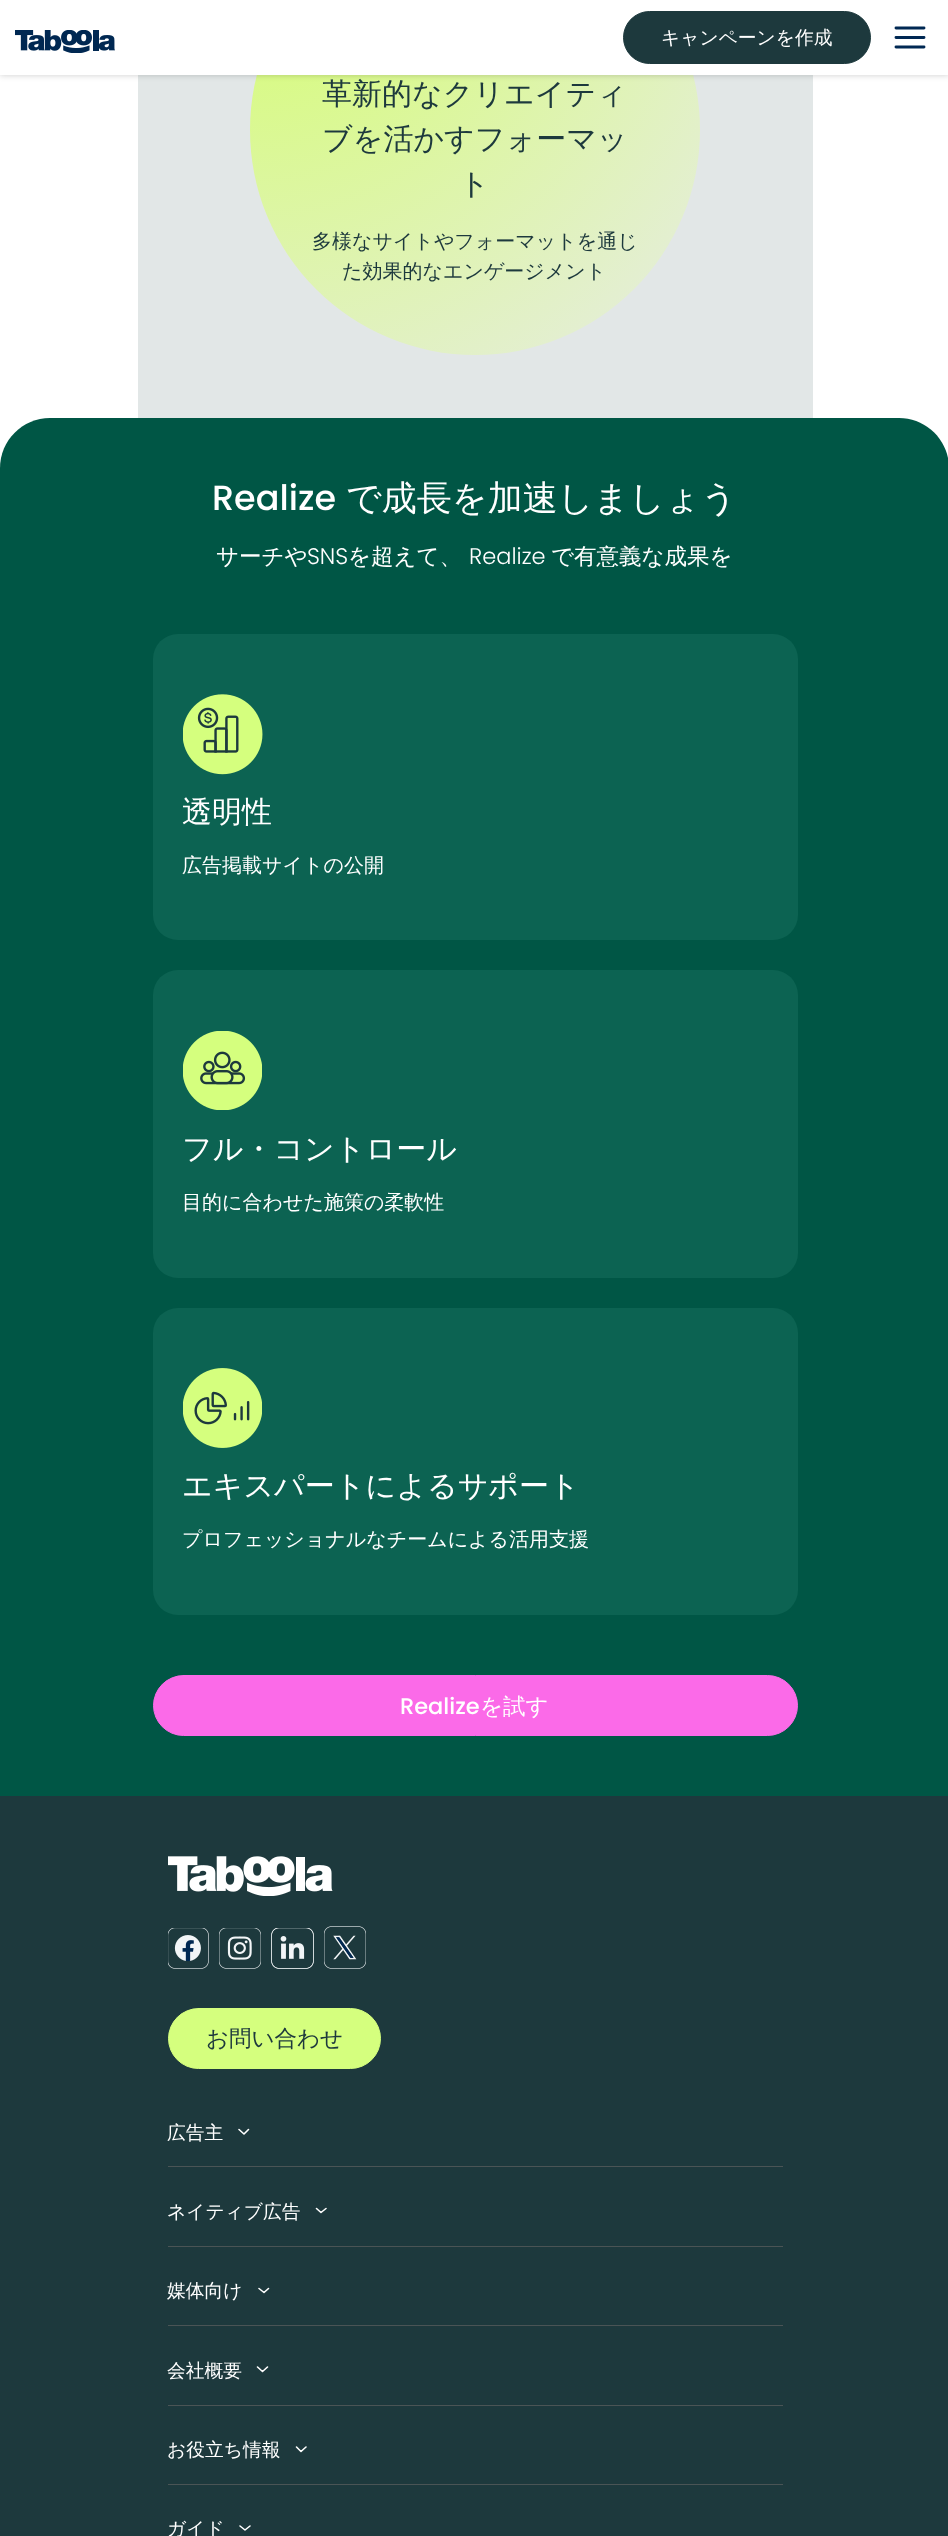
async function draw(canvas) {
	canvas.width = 948;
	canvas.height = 2536;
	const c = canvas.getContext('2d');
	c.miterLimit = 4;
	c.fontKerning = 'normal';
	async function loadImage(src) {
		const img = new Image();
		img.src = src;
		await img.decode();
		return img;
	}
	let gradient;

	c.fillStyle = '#fff';
	c.fillRect(0, 0, 948, 2536);
	c.fillStyle = '#e2e7e7';
	c.fillRect(138, 75, 675, 343);
	gradient = c.createRadialGradient(250, -95, 0, 250, -95, 636);
	gradient.addColorStop(0, '#d4ff67');
	gradient.addColorStop(1, '#e6ece3');
	c.fillStyle = gradient;
	c.beginPath();
	c.arc(475, 130, 225, 0, 2 * Math.PI);
	c.fill();
	c.fillStyle = '#00000033';
	c.filter = 'blur(3px)';
	c.beginPath();
	c.rect(0, 0, 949, 75);
	c.fill();
	c.filter = 'none';
	c.fillStyle = '#fff';
	c.fillRect(0, 0, 948, 75);
	c.drawImage(await loadImage('img1.png'), 15, 30, 100, 23);
	c.fillStyle = '#1d393d';
	c.beginPath();
	c.roundRect(623.5, 11.5, 247, 52, 26);
	c.fill();
	c.strokeStyle = '#1d393d';
	c.stroke();
	c.font = '500 18.75px WenQuanYi Zen Hei';
	c.fillStyle = '#fff';
	c.fillText('キャンペーンを作成', 661, 44);
	c.beginPath();
	c.moveTo(896, 28);
	c.lineTo(924, 28);
	c.moveTo(896, 37.5);
	c.lineTo(924, 37.5);
	c.moveTo(896, 47);
	c.lineTo(924, 47);
	c.strokeStyle = '#002853';
	c.lineWidth = 2.9;
	c.lineCap = 'round';
	c.stroke();
	c.font = '500 30px WenQuanYi Zen Hei';
	c.fillStyle = '#1d393d';
	for (const [text, x, y] of [
		['革新的なクリエイティ', 322, 104],
		['ブを活かすフォーマッ', 322, 149],
		['ト', 459, 194],
	]) {
		c.fillText(text, x, y);
	}
	c.font = '500 20px WenQuanYi Zen Hei';
	c.fillText('多様なサイトやフォーマットを通じ', 312, 248);
	c.fillText('た効果的なエンゲージメント', 342, 278);
	c.fillStyle = '#005645';
	c.beginPath();
	c.moveTo(50, 418);
	c.lineTo(899, 418);
	c.bezierCurveTo(926.5, 418, 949, 440.5, 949, 468);
	c.lineTo(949, 1796);
	c.lineTo(0, 1796);
	c.lineTo(0, 468);
	c.bezierCurveTo(0, 440.5, 22.5, 418, 50, 418);
	c.closePath();
	c.fill();
	c.font = '500 35px Poppins';
	c.fillStyle = '#fff';
	c.fillText('Realize', 212, 510);
	c.font = '500 35px WenQuanYi Zen Hei';
	c.fillText('で成長を加速しましょう', 346, 510);
	c.font = '500 22.5px WenQuanYi Zen Hei';
	c.fillText('サーチや', 216, 564);
	c.font = '300 22.5px Poppins';
	c.fillText('SNS', 307, 564);
	c.font = '500 22.5px WenQuanYi Zen Hei';
	c.fillText('を超えて、', 348, 564);
	c.font = '300 22.5px Poppins';
	c.fillText('Realize', 469, 564);
	c.font = '500 22.5px WenQuanYi Zen Hei';
	c.fillText('で有意義な成果を', 551, 564);
	c.fillStyle = '#0c6352';
	c.beginPath();
	c.roundRect(153, 634, 645, 306, 25);
	c.fill();
	c.drawImage(await loadImage('img2.png'), 183, 694, 80, 81);
	c.font = '500 30px WenQuanYi Zen Hei';
	c.fillStyle = '#fff';
	c.fillText('透明性', 182, 822);
	c.font = '500 20px WenQuanYi Zen Hei';
	c.fillText('広告掲載サイトの公開', 182, 872);
	c.fillStyle = '#0c6352';
	c.beginPath();
	c.roundRect(153, 970, 645, 308, 25);
	c.fill();
	c.drawImage(await loadImage('img3.png'), 183, 1031, 79, 79);
	c.font = '500 30px WenQuanYi Zen Hei';
	c.fillStyle = '#fff';
	c.fillText('フル・コントロール', 182, 1159);
	c.font = '500 20px WenQuanYi Zen Hei';
	c.fillText('目的に合わせた施策の柔軟性', 182, 1209);
	c.fillStyle = '#0c6352';
	c.beginPath();
	c.roundRect(153, 1308, 645, 307, 25);
	c.fill();
	c.drawImage(await loadImage('img4.png'), 183, 1368, 79, 80);
	c.font = '500 30px WenQuanYi Zen Hei';
	c.fillStyle = '#fff';
	c.fillText('エキスパートによるサポート', 182, 1496);
	c.font = '500 20px WenQuanYi Zen Hei';
	c.fillText('プロフェッショナルなチームによる活用支援', 182, 1546);
	c.fillStyle = '#fb6ae8';
	c.beginPath();
	c.roundRect(153.5, 1675.5, 644, 60, 30);
	c.fill();
	c.strokeStyle = '#fb6ae8';
	c.lineWidth = 1;
	c.stroke();
	c.font = '500 22.5px Poppins';
	c.fillStyle = '#fff';
	c.fillText('Realize', 400, 1714);
	c.font = '500 22.5px WenQuanYi Zen Hei';
	c.fillText('を試す', 480, 1714);
	c.fillStyle = '#1d393d';
	c.fillRect(0, 1796, 948, 740);
	c.drawImage(await loadImage('img5.png'), 168, 1856, 165, 40);
	c.drawImage(await loadImage('img6.png'), 168, 1928, 41, 41);
	c.drawImage(await loadImage('img7.png'), 219, 1928, 42, 41);
	c.drawImage(await loadImage('img8.png'), 271, 1928, 43, 41);
	c.drawImage(await loadImage('img9.png'), 324, 1926, 42, 43);
	c.fillStyle = '#d5ff7e';
	c.beginPath();
	c.roundRect(168.5, 2008.5, 212, 60, 30);
	c.fill();
	c.strokeStyle = '#d5ff7e';
	c.stroke();
	c.fillStyle = '#1d393d';
	c.fillText('お問い合わせ', 206, 2046);
	c.fillStyle = '#4a5455';
	c.fillRect(168, 2166, 615, 1);
	c.font = '500 18.75px WenQuanYi Zen Hei';
	c.fillStyle = '#fff';
	c.fillText('広告主', 167, 2139);
	c.beginPath();
	c.moveTo(239, 2129.5);
	c.lineTo(244, 2134);
	c.lineTo(248.5, 2129.5);
	c.strokeStyle = '#fff';
	c.lineWidth = 1.6;
	c.lineJoin = 'round';
	c.stroke();
	c.fillStyle = '#4a5455';
	c.fillRect(168, 2246, 615, 1);
	c.fillStyle = '#fff';
	c.fillText('ネイティブ広告', 167, 2218);
	c.beginPath();
	c.moveTo(316.5, 2208.5);
	c.lineTo(321, 2212.5);
	c.lineTo(326, 2208.5);
	c.stroke();
	c.fillStyle = '#4a5455';
	c.fillRect(168, 2325, 615, 1);
	c.fillStyle = '#fff';
	c.fillText('媒体向け', 167, 2297);
	c.beginPath();
	c.moveTo(259, 2288.5);
	c.lineTo(264, 2292.5);
	c.lineTo(268.5, 2288.5);
	c.stroke();
	c.fillStyle = '#4a5455';
	c.fillRect(168, 2405, 615, 1);
	c.fillStyle = '#fff';
	c.fillText('会社概要', 167, 2377);
	c.beginPath();
	c.moveTo(257.5, 2367);
	c.lineTo(262.5, 2371.5);
	c.lineTo(267.5, 2367);
	c.stroke();
	c.fillStyle = '#4a5455';
	c.fillRect(168, 2484, 615, 1);
	c.fillStyle = '#fff';
	c.fillText('お役立ち情報', 167, 2456);
	c.beginPath();
	c.moveTo(296.5, 2447);
	c.lineTo(301, 2451.5);
	c.lineTo(306, 2447);
	c.stroke();
	c.fillText('ガイド', 167, 2535);
	c.beginPath();
	c.moveTo(240, 2526);
	c.lineTo(245, 2530);
	c.lineTo(250, 2526);
	c.stroke();
}

draw(document.querySelector('canvas'));
